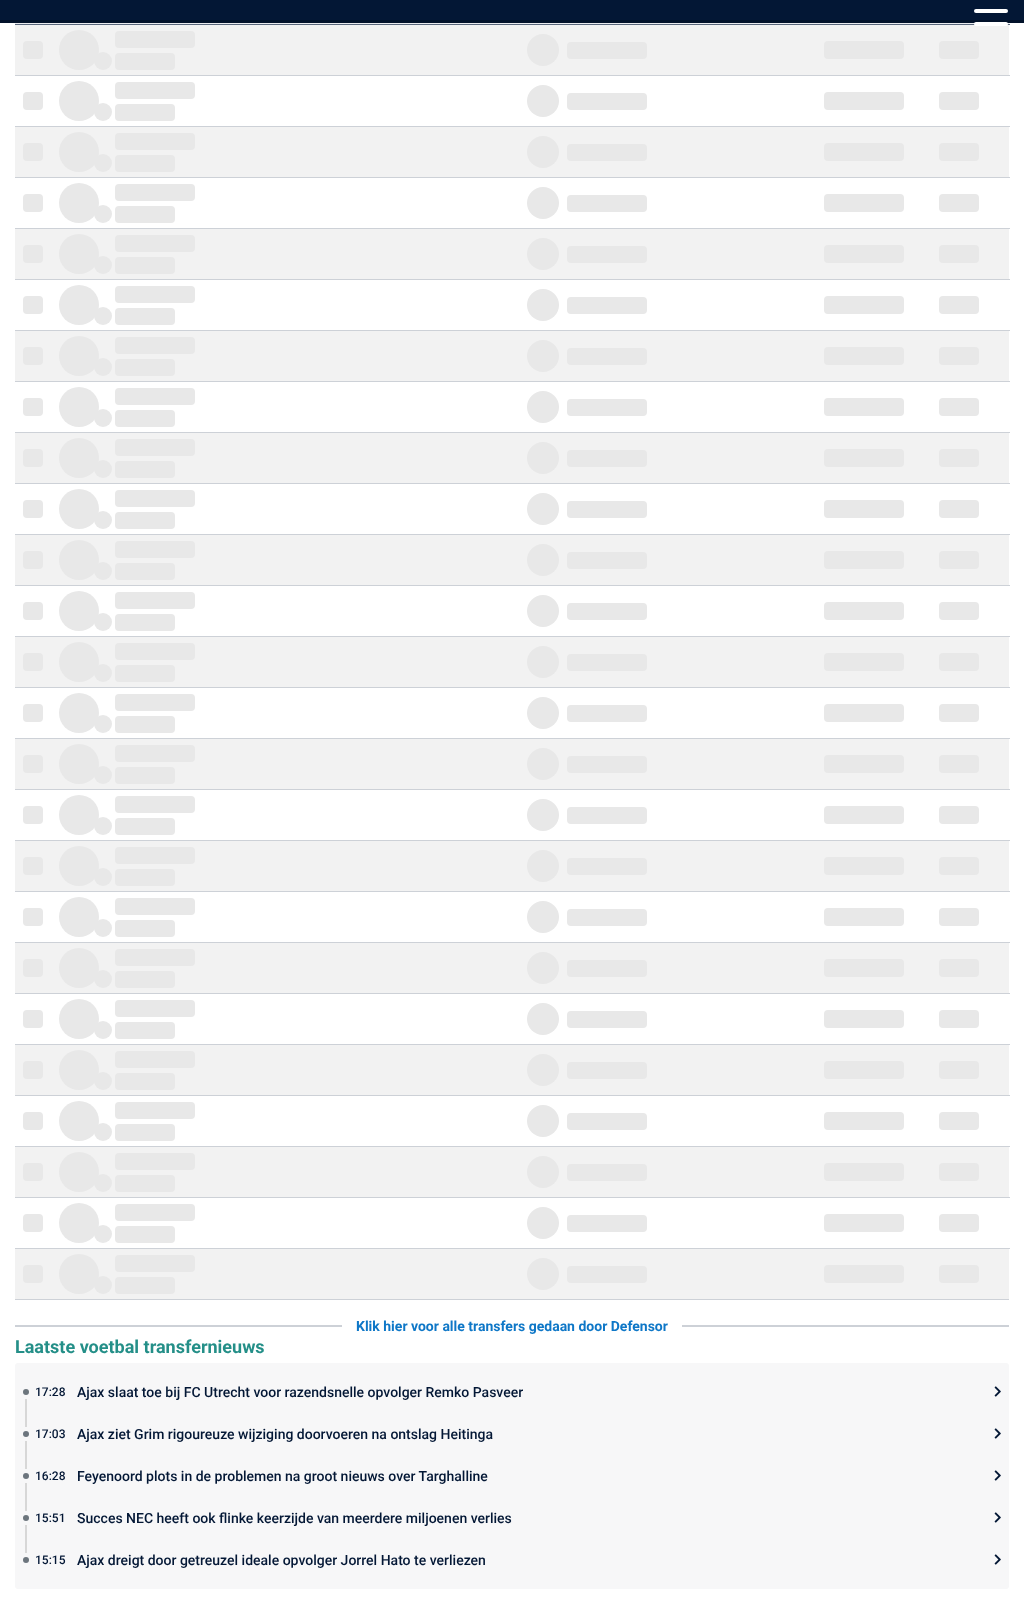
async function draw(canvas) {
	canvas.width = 1024;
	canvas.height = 1616;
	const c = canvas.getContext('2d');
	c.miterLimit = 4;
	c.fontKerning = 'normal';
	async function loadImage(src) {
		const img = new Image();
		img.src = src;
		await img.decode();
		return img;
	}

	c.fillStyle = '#fff';
	c.fillRect(0, 0, 1024, 1616);
	c.fillStyle = '#031735';
	c.fillRect(0, 0, 1024, 20);
	c.fillStyle = '#02122a';
	c.fillRect(0, 20, 1024, 3);
	c.fillStyle = '#fff';
	c.beginPath();
	c.roundRect(974, 9, 34, 4, 2);
	c.fill();
	for (const [x, y, w, h, color] of [
		[15, 23, 994, 1, '#ebecef'],
		[15, 24, 995, 1, '#59667a'],
		[15, 25, 994, 50, '#f2f2f2'],
	]) {
		c.fillStyle = color;
		c.fillRect(x, y, w, h);
	}
	c.fillStyle = '#fff';
	c.beginPath();
	c.roundRect(974, 22, 34, 4, 2);
	c.fill();
	c.fillStyle = '#cdd1d7';
	c.fillRect(15, 1299, 994, 1);
	c.fillStyle = '#e8e8e8';
	c.beginPath();
	c.roundRect(23, 41, 20, 18, 4);
	c.fill();
	c.beginPath();
	c.arc(79, 50, 20, 0, 2 * Math.PI);
	c.fill();
	c.beginPath();
	c.arc(103, 61, 9, 0, 2 * Math.PI);
	c.fill();
	c.beginPath();
	c.roundRect(115, 31, 80, 17, 4);
	c.fill();
	c.beginPath();
	c.roundRect(115, 53, 60, 17, 4);
	c.fill();
	c.beginPath();
	c.arc(543, 50, 16, 0, 2 * Math.PI);
	c.fill();
	c.beginPath();
	c.roundRect(567, 42, 80, 17, 4);
	c.fill();
	c.beginPath();
	c.roundRect(824, 41, 80, 18, 4);
	c.fill();
	c.beginPath();
	c.roundRect(939, 41, 40, 18, 4);
	c.fill();
	c.fillStyle = '#cdd1d7';
	c.fillRect(15, 75, 995, 1);
	c.fillStyle = '#e8e8e8';
	c.beginPath();
	c.roundRect(939, 92, 40, 18, 4);
	c.fill();
	c.beginPath();
	c.roundRect(23, 92, 20, 18, 4);
	c.fill();
	c.beginPath();
	c.arc(79, 101, 20, 0, 2 * Math.PI);
	c.fill();
	c.beginPath();
	c.arc(103, 112, 9, 0, 2 * Math.PI);
	c.fill();
	c.beginPath();
	c.roundRect(115, 82, 80, 17, 4);
	c.fill();
	c.beginPath();
	c.roundRect(115, 104, 60, 17, 4);
	c.fill();
	c.beginPath();
	c.arc(543, 101, 16, 0, 2 * Math.PI);
	c.fill();
	c.beginPath();
	c.roundRect(567, 93, 80, 17, 4);
	c.fill();
	c.beginPath();
	c.roundRect(824, 92, 80, 18, 4);
	c.fill();
	c.fillStyle = '#f2f2f2';
	c.fillRect(15, 127, 994, 50);
	c.fillStyle = '#cdd1d7';
	c.fillRect(15, 126, 995, 1);
	c.fillStyle = '#e8e8e8';
	c.beginPath();
	c.roundRect(939, 143, 40, 18, 4);
	c.fill();
	c.beginPath();
	c.roundRect(23, 143, 20, 18, 4);
	c.fill();
	c.beginPath();
	c.arc(79, 152, 20, 0, 2 * Math.PI);
	c.fill();
	c.beginPath();
	c.arc(103, 163, 9, 0, 2 * Math.PI);
	c.fill();
	c.beginPath();
	c.roundRect(115, 133, 80, 17, 4);
	c.fill();
	c.beginPath();
	c.roundRect(115, 155, 60, 17, 4);
	c.fill();
	c.beginPath();
	c.arc(543, 152, 16, 0, 2 * Math.PI);
	c.fill();
	c.beginPath();
	c.roundRect(567, 144, 80, 17, 4);
	c.fill();
	c.beginPath();
	c.roundRect(824, 143, 80, 18, 4);
	c.fill();
	c.fillStyle = '#cdd1d7';
	c.fillRect(15, 177, 995, 1);
	c.fillStyle = '#e8e8e8';
	c.beginPath();
	c.roundRect(939, 194, 40, 18, 4);
	c.fill();
	c.beginPath();
	c.roundRect(23, 194, 20, 18, 4);
	c.fill();
	c.beginPath();
	c.arc(79, 203, 20, 0, 2 * Math.PI);
	c.fill();
	c.beginPath();
	c.arc(103, 214, 9, 0, 2 * Math.PI);
	c.fill();
	c.beginPath();
	c.roundRect(115, 184, 80, 17, 4);
	c.fill();
	c.beginPath();
	c.roundRect(115, 206, 60, 17, 4);
	c.fill();
	c.beginPath();
	c.arc(543, 203, 16, 0, 2 * Math.PI);
	c.fill();
	c.beginPath();
	c.roundRect(567, 195, 80, 17, 4);
	c.fill();
	c.beginPath();
	c.roundRect(824, 194, 80, 18, 4);
	c.fill();
	c.fillStyle = '#f2f2f2';
	c.fillRect(15, 229, 994, 50);
	c.fillStyle = '#cdd1d7';
	c.fillRect(15, 228, 995, 1);
	c.fillStyle = '#e8e8e8';
	c.beginPath();
	c.roundRect(939, 245, 40, 18, 4);
	c.fill();
	c.beginPath();
	c.roundRect(23, 245, 20, 18, 4);
	c.fill();
	c.beginPath();
	c.arc(79, 254, 20, 0, 2 * Math.PI);
	c.fill();
	c.beginPath();
	c.arc(103, 265, 9, 0, 2 * Math.PI);
	c.fill();
	c.beginPath();
	c.roundRect(115, 235, 80, 17, 4);
	c.fill();
	c.beginPath();
	c.roundRect(115, 257, 60, 17, 4);
	c.fill();
	c.beginPath();
	c.arc(543, 254, 16, 0, 2 * Math.PI);
	c.fill();
	c.beginPath();
	c.roundRect(567, 246, 80, 17, 4);
	c.fill();
	c.beginPath();
	c.roundRect(824, 245, 80, 18, 4);
	c.fill();
	c.fillStyle = '#cdd1d7';
	c.fillRect(15, 279, 995, 1);
	c.fillStyle = '#e8e8e8';
	c.beginPath();
	c.roundRect(939, 296, 40, 18, 4);
	c.fill();
	c.beginPath();
	c.roundRect(23, 296, 20, 18, 4);
	c.fill();
	c.beginPath();
	c.arc(79, 305, 20, 0, 2 * Math.PI);
	c.fill();
	c.beginPath();
	c.arc(103, 316, 9, 0, 2 * Math.PI);
	c.fill();
	c.beginPath();
	c.roundRect(115, 286, 80, 17, 4);
	c.fill();
	c.beginPath();
	c.roundRect(115, 308, 60, 17, 4);
	c.fill();
	c.beginPath();
	c.arc(543, 305, 16, 0, 2 * Math.PI);
	c.fill();
	c.beginPath();
	c.roundRect(567, 297, 80, 17, 4);
	c.fill();
	c.beginPath();
	c.roundRect(824, 296, 80, 18, 4);
	c.fill();
	c.fillStyle = '#f2f2f2';
	c.fillRect(15, 331, 994, 50);
	c.fillStyle = '#cdd1d7';
	c.fillRect(15, 330, 995, 1);
	c.fillStyle = '#e8e8e8';
	c.beginPath();
	c.roundRect(939, 347, 40, 18, 4);
	c.fill();
	c.beginPath();
	c.roundRect(23, 347, 20, 18, 4);
	c.fill();
	c.beginPath();
	c.arc(79, 356, 20, 0, 2 * Math.PI);
	c.fill();
	c.beginPath();
	c.arc(103, 367, 9, 0, 2 * Math.PI);
	c.fill();
	c.beginPath();
	c.roundRect(115, 337, 80, 17, 4);
	c.fill();
	c.beginPath();
	c.roundRect(115, 359, 60, 17, 4);
	c.fill();
	c.beginPath();
	c.arc(543, 356, 16, 0, 2 * Math.PI);
	c.fill();
	c.beginPath();
	c.roundRect(567, 348, 80, 17, 4);
	c.fill();
	c.beginPath();
	c.roundRect(824, 347, 80, 18, 4);
	c.fill();
	c.fillStyle = '#cdd1d7';
	c.fillRect(15, 381, 995, 1);
	c.fillStyle = '#e8e8e8';
	c.beginPath();
	c.roundRect(939, 398, 40, 18, 4);
	c.fill();
	c.beginPath();
	c.roundRect(23, 398, 20, 18, 4);
	c.fill();
	c.beginPath();
	c.arc(79, 407, 20, 0, 2 * Math.PI);
	c.fill();
	c.beginPath();
	c.arc(103, 418, 9, 0, 2 * Math.PI);
	c.fill();
	c.beginPath();
	c.roundRect(115, 388, 80, 17, 4);
	c.fill();
	c.beginPath();
	c.roundRect(115, 410, 60, 17, 4);
	c.fill();
	c.beginPath();
	c.arc(543, 407, 16, 0, 2 * Math.PI);
	c.fill();
	c.beginPath();
	c.roundRect(567, 399, 80, 17, 4);
	c.fill();
	c.beginPath();
	c.roundRect(824, 398, 80, 18, 4);
	c.fill();
	c.fillStyle = '#f2f2f2';
	c.fillRect(15, 433, 994, 50);
	c.fillStyle = '#cdd1d7';
	c.fillRect(15, 432, 995, 1);
	c.fillStyle = '#e8e8e8';
	c.beginPath();
	c.roundRect(939, 449, 40, 18, 4);
	c.fill();
	c.beginPath();
	c.roundRect(23, 449, 20, 18, 4);
	c.fill();
	c.beginPath();
	c.arc(79, 458, 20, 0, 2 * Math.PI);
	c.fill();
	c.beginPath();
	c.arc(103, 469, 9, 0, 2 * Math.PI);
	c.fill();
	c.beginPath();
	c.roundRect(115, 439, 80, 17, 4);
	c.fill();
	c.beginPath();
	c.roundRect(115, 461, 60, 17, 4);
	c.fill();
	c.beginPath();
	c.arc(543, 458, 16, 0, 2 * Math.PI);
	c.fill();
	c.beginPath();
	c.roundRect(567, 450, 80, 17, 4);
	c.fill();
	c.beginPath();
	c.roundRect(824, 449, 80, 18, 4);
	c.fill();
	c.fillStyle = '#cdd1d7';
	c.fillRect(15, 483, 995, 1);
	c.fillStyle = '#e8e8e8';
	c.beginPath();
	c.roundRect(939, 500, 40, 18, 4);
	c.fill();
	c.beginPath();
	c.roundRect(23, 500, 20, 18, 4);
	c.fill();
	c.beginPath();
	c.arc(79, 509, 20, 0, 2 * Math.PI);
	c.fill();
	c.beginPath();
	c.arc(103, 520, 9, 0, 2 * Math.PI);
	c.fill();
	c.beginPath();
	c.roundRect(115, 490, 80, 17, 4);
	c.fill();
	c.beginPath();
	c.roundRect(115, 512, 60, 17, 4);
	c.fill();
	c.beginPath();
	c.arc(543, 509, 16, 0, 2 * Math.PI);
	c.fill();
	c.beginPath();
	c.roundRect(567, 501, 80, 17, 4);
	c.fill();
	c.beginPath();
	c.roundRect(824, 500, 80, 18, 4);
	c.fill();
	c.fillStyle = '#f2f2f2';
	c.fillRect(15, 535, 994, 50);
	c.fillStyle = '#cdd1d7';
	c.fillRect(15, 534, 995, 1);
	c.fillStyle = '#e8e8e8';
	c.beginPath();
	c.roundRect(939, 551, 40, 18, 4);
	c.fill();
	c.beginPath();
	c.roundRect(23, 551, 20, 18, 4);
	c.fill();
	c.beginPath();
	c.arc(79, 560, 20, 0, 2 * Math.PI);
	c.fill();
	c.beginPath();
	c.arc(103, 571, 9, 0, 2 * Math.PI);
	c.fill();
	c.beginPath();
	c.roundRect(115, 541, 80, 17, 4);
	c.fill();
	c.beginPath();
	c.roundRect(115, 563, 60, 17, 4);
	c.fill();
	c.beginPath();
	c.arc(543, 560, 16, 0, 2 * Math.PI);
	c.fill();
	c.beginPath();
	c.roundRect(567, 552, 80, 17, 4);
	c.fill();
	c.beginPath();
	c.roundRect(824, 551, 80, 18, 4);
	c.fill();
	c.fillStyle = '#cdd1d7';
	c.fillRect(15, 585, 995, 1);
	c.fillStyle = '#e8e8e8';
	c.beginPath();
	c.roundRect(939, 602, 40, 18, 4);
	c.fill();
	c.beginPath();
	c.roundRect(23, 602, 20, 18, 4);
	c.fill();
	c.beginPath();
	c.arc(79, 611, 20, 0, 2 * Math.PI);
	c.fill();
	c.beginPath();
	c.arc(103, 622, 9, 0, 2 * Math.PI);
	c.fill();
	c.beginPath();
	c.roundRect(115, 592, 80, 17, 4);
	c.fill();
	c.beginPath();
	c.roundRect(115, 614, 60, 17, 4);
	c.fill();
	c.beginPath();
	c.arc(543, 611, 16, 0, 2 * Math.PI);
	c.fill();
	c.beginPath();
	c.roundRect(567, 603, 80, 17, 4);
	c.fill();
	c.beginPath();
	c.roundRect(824, 602, 80, 18, 4);
	c.fill();
	c.fillStyle = '#f2f2f2';
	c.fillRect(15, 637, 994, 50);
	c.fillStyle = '#cdd1d7';
	c.fillRect(15, 636, 995, 1);
	c.fillStyle = '#e8e8e8';
	c.beginPath();
	c.roundRect(939, 653, 40, 18, 4);
	c.fill();
	c.beginPath();
	c.roundRect(23, 653, 20, 18, 4);
	c.fill();
	c.beginPath();
	c.arc(79, 662, 20, 0, 2 * Math.PI);
	c.fill();
	c.beginPath();
	c.arc(103, 673, 9, 0, 2 * Math.PI);
	c.fill();
	c.beginPath();
	c.roundRect(115, 643, 80, 17, 4);
	c.fill();
	c.beginPath();
	c.roundRect(115, 665, 60, 17, 4);
	c.fill();
	c.beginPath();
	c.arc(543, 662, 16, 0, 2 * Math.PI);
	c.fill();
	c.beginPath();
	c.roundRect(567, 654, 80, 17, 4);
	c.fill();
	c.beginPath();
	c.roundRect(824, 653, 80, 18, 4);
	c.fill();
	c.fillStyle = '#cdd1d7';
	c.fillRect(15, 687, 995, 1);
	c.fillStyle = '#e8e8e8';
	c.beginPath();
	c.roundRect(939, 704, 40, 18, 4);
	c.fill();
	c.beginPath();
	c.roundRect(23, 704, 20, 18, 4);
	c.fill();
	c.beginPath();
	c.arc(79, 713, 20, 0, 2 * Math.PI);
	c.fill();
	c.beginPath();
	c.arc(103, 724, 9, 0, 2 * Math.PI);
	c.fill();
	c.beginPath();
	c.roundRect(115, 694, 80, 17, 4);
	c.fill();
	c.beginPath();
	c.roundRect(115, 716, 60, 17, 4);
	c.fill();
	c.beginPath();
	c.arc(543, 713, 16, 0, 2 * Math.PI);
	c.fill();
	c.beginPath();
	c.roundRect(567, 705, 80, 17, 4);
	c.fill();
	c.beginPath();
	c.roundRect(824, 704, 80, 18, 4);
	c.fill();
	c.fillStyle = '#f2f2f2';
	c.fillRect(15, 739, 994, 50);
	c.fillStyle = '#cdd1d7';
	c.fillRect(15, 738, 995, 1);
	c.fillStyle = '#e8e8e8';
	c.beginPath();
	c.roundRect(939, 755, 40, 18, 4);
	c.fill();
	c.beginPath();
	c.roundRect(23, 755, 20, 18, 4);
	c.fill();
	c.beginPath();
	c.arc(79, 764, 20, 0, 2 * Math.PI);
	c.fill();
	c.beginPath();
	c.arc(103, 775, 9, 0, 2 * Math.PI);
	c.fill();
	c.beginPath();
	c.roundRect(115, 745, 80, 17, 4);
	c.fill();
	c.beginPath();
	c.roundRect(115, 767, 60, 17, 4);
	c.fill();
	c.beginPath();
	c.arc(543, 764, 16, 0, 2 * Math.PI);
	c.fill();
	c.beginPath();
	c.roundRect(567, 756, 80, 17, 4);
	c.fill();
	c.beginPath();
	c.roundRect(824, 755, 80, 18, 4);
	c.fill();
	c.fillStyle = '#cdd1d7';
	c.fillRect(15, 789, 995, 1);
	c.fillStyle = '#e8e8e8';
	c.beginPath();
	c.roundRect(939, 806, 40, 18, 4);
	c.fill();
	c.beginPath();
	c.roundRect(23, 806, 20, 18, 4);
	c.fill();
	c.beginPath();
	c.arc(79, 815, 20, 0, 2 * Math.PI);
	c.fill();
	c.beginPath();
	c.arc(103, 826, 9, 0, 2 * Math.PI);
	c.fill();
	c.beginPath();
	c.roundRect(115, 796, 80, 17, 4);
	c.fill();
	c.beginPath();
	c.roundRect(115, 818, 60, 17, 4);
	c.fill();
	c.beginPath();
	c.arc(543, 815, 16, 0, 2 * Math.PI);
	c.fill();
	c.beginPath();
	c.roundRect(567, 807, 80, 17, 4);
	c.fill();
	c.beginPath();
	c.roundRect(824, 806, 80, 18, 4);
	c.fill();
	c.fillStyle = '#f2f2f2';
	c.fillRect(15, 841, 994, 50);
	c.fillStyle = '#cdd1d7';
	c.fillRect(15, 840, 995, 1);
	c.fillStyle = '#e8e8e8';
	c.beginPath();
	c.roundRect(939, 857, 40, 18, 4);
	c.fill();
	c.beginPath();
	c.roundRect(23, 857, 20, 18, 4);
	c.fill();
	c.beginPath();
	c.arc(79, 866, 20, 0, 2 * Math.PI);
	c.fill();
	c.beginPath();
	c.arc(103, 877, 9, 0, 2 * Math.PI);
	c.fill();
	c.beginPath();
	c.roundRect(115, 847, 80, 17, 4);
	c.fill();
	c.beginPath();
	c.roundRect(115, 869, 60, 17, 4);
	c.fill();
	c.beginPath();
	c.arc(543, 866, 16, 0, 2 * Math.PI);
	c.fill();
	c.beginPath();
	c.roundRect(567, 858, 80, 17, 4);
	c.fill();
	c.beginPath();
	c.roundRect(824, 857, 80, 18, 4);
	c.fill();
	c.fillStyle = '#cdd1d7';
	c.fillRect(15, 891, 995, 1);
	c.fillStyle = '#e8e8e8';
	c.beginPath();
	c.roundRect(939, 908, 40, 18, 4);
	c.fill();
	c.beginPath();
	c.roundRect(23, 908, 20, 18, 4);
	c.fill();
	c.beginPath();
	c.arc(79, 917, 20, 0, 2 * Math.PI);
	c.fill();
	c.beginPath();
	c.arc(103, 928, 9, 0, 2 * Math.PI);
	c.fill();
	c.beginPath();
	c.roundRect(115, 898, 80, 17, 4);
	c.fill();
	c.beginPath();
	c.roundRect(115, 920, 60, 17, 4);
	c.fill();
	c.beginPath();
	c.arc(543, 917, 16, 0, 2 * Math.PI);
	c.fill();
	c.beginPath();
	c.roundRect(567, 909, 80, 17, 4);
	c.fill();
	c.beginPath();
	c.roundRect(824, 908, 80, 18, 4);
	c.fill();
	c.fillStyle = '#f2f2f2';
	c.fillRect(15, 943, 994, 50);
	c.fillStyle = '#cdd1d7';
	c.fillRect(15, 942, 995, 1);
	c.fillStyle = '#e8e8e8';
	c.beginPath();
	c.roundRect(939, 959, 40, 18, 4);
	c.fill();
	c.beginPath();
	c.roundRect(23, 959, 20, 18, 4);
	c.fill();
	c.beginPath();
	c.arc(79, 968, 20, 0, 2 * Math.PI);
	c.fill();
	c.beginPath();
	c.arc(103, 979, 9, 0, 2 * Math.PI);
	c.fill();
	c.beginPath();
	c.roundRect(115, 949, 80, 17, 4);
	c.fill();
	c.beginPath();
	c.roundRect(115, 971, 60, 17, 4);
	c.fill();
	c.beginPath();
	c.arc(543, 968, 16, 0, 2 * Math.PI);
	c.fill();
	c.beginPath();
	c.roundRect(567, 960, 80, 17, 4);
	c.fill();
	c.beginPath();
	c.roundRect(824, 959, 80, 18, 4);
	c.fill();
	c.fillStyle = '#cdd1d7';
	c.fillRect(15, 993, 995, 1);
	c.fillStyle = '#e8e8e8';
	c.beginPath();
	c.roundRect(939, 1010, 40, 18, 4);
	c.fill();
	c.beginPath();
	c.roundRect(23, 1010, 20, 18, 4);
	c.fill();
	c.beginPath();
	c.arc(79, 1019, 20, 0, 2 * Math.PI);
	c.fill();
	c.beginPath();
	c.arc(103, 1030, 9, 0, 2 * Math.PI);
	c.fill();
	c.beginPath();
	c.roundRect(115, 1000, 80, 17, 4);
	c.fill();
	c.beginPath();
	c.roundRect(115, 1022, 60, 17, 4);
	c.fill();
	c.beginPath();
	c.arc(543, 1019, 16, 0, 2 * Math.PI);
	c.fill();
	c.beginPath();
	c.roundRect(567, 1011, 80, 17, 4);
	c.fill();
	c.beginPath();
	c.roundRect(824, 1010, 80, 18, 4);
	c.fill();
	c.fillStyle = '#f2f2f2';
	c.fillRect(15, 1045, 994, 50);
	c.fillStyle = '#cdd1d7';
	c.fillRect(15, 1044, 995, 1);
	c.fillStyle = '#e8e8e8';
	c.beginPath();
	c.roundRect(939, 1061, 40, 18, 4);
	c.fill();
	c.beginPath();
	c.roundRect(23, 1061, 20, 18, 4);
	c.fill();
	c.beginPath();
	c.arc(79, 1070, 20, 0, 2 * Math.PI);
	c.fill();
	c.beginPath();
	c.arc(103, 1081, 9, 0, 2 * Math.PI);
	c.fill();
	c.beginPath();
	c.roundRect(115, 1051, 80, 17, 4);
	c.fill();
	c.beginPath();
	c.roundRect(115, 1073, 60, 17, 4);
	c.fill();
	c.beginPath();
	c.arc(543, 1070, 16, 0, 2 * Math.PI);
	c.fill();
	c.beginPath();
	c.roundRect(567, 1062, 80, 17, 4);
	c.fill();
	c.beginPath();
	c.roundRect(824, 1061, 80, 18, 4);
	c.fill();
	c.fillStyle = '#cdd1d7';
	c.fillRect(15, 1095, 995, 1);
	c.fillStyle = '#e8e8e8';
	c.beginPath();
	c.roundRect(939, 1112, 40, 18, 4);
	c.fill();
	c.beginPath();
	c.roundRect(23, 1112, 20, 18, 4);
	c.fill();
	c.beginPath();
	c.arc(79, 1121, 20, 0, 2 * Math.PI);
	c.fill();
	c.beginPath();
	c.arc(103, 1132, 9, 0, 2 * Math.PI);
	c.fill();
	c.beginPath();
	c.roundRect(115, 1102, 80, 17, 4);
	c.fill();
	c.beginPath();
	c.roundRect(115, 1124, 60, 17, 4);
	c.fill();
	c.beginPath();
	c.arc(543, 1121, 16, 0, 2 * Math.PI);
	c.fill();
	c.beginPath();
	c.roundRect(567, 1113, 80, 17, 4);
	c.fill();
	c.beginPath();
	c.roundRect(824, 1112, 80, 18, 4);
	c.fill();
	c.fillStyle = '#f2f2f2';
	c.fillRect(15, 1147, 994, 50);
	c.fillStyle = '#cdd1d7';
	c.fillRect(15, 1146, 995, 1);
	c.fillStyle = '#e8e8e8';
	c.beginPath();
	c.roundRect(939, 1163, 40, 18, 4);
	c.fill();
	c.beginPath();
	c.roundRect(23, 1163, 20, 18, 4);
	c.fill();
	c.beginPath();
	c.arc(79, 1172, 20, 0, 2 * Math.PI);
	c.fill();
	c.beginPath();
	c.arc(103, 1183, 9, 0, 2 * Math.PI);
	c.fill();
	c.beginPath();
	c.roundRect(115, 1153, 80, 17, 4);
	c.fill();
	c.beginPath();
	c.roundRect(115, 1175, 60, 17, 4);
	c.fill();
	c.beginPath();
	c.arc(543, 1172, 16, 0, 2 * Math.PI);
	c.fill();
	c.beginPath();
	c.roundRect(567, 1164, 80, 17, 4);
	c.fill();
	c.beginPath();
	c.roundRect(824, 1163, 80, 18, 4);
	c.fill();
	c.fillStyle = '#cdd1d7';
	c.fillRect(15, 1197, 995, 1);
	c.fillStyle = '#e8e8e8';
	c.beginPath();
	c.roundRect(939, 1214, 40, 18, 4);
	c.fill();
	c.beginPath();
	c.roundRect(23, 1214, 20, 18, 4);
	c.fill();
	c.beginPath();
	c.arc(79, 1223, 20, 0, 2 * Math.PI);
	c.fill();
	c.beginPath();
	c.arc(103, 1234, 9, 0, 2 * Math.PI);
	c.fill();
	c.beginPath();
	c.roundRect(115, 1204, 80, 17, 4);
	c.fill();
	c.beginPath();
	c.roundRect(115, 1226, 60, 17, 4);
	c.fill();
	c.beginPath();
	c.arc(543, 1223, 16, 0, 2 * Math.PI);
	c.fill();
	c.beginPath();
	c.roundRect(567, 1215, 80, 17, 4);
	c.fill();
	c.beginPath();
	c.roundRect(824, 1214, 80, 18, 4);
	c.fill();
	c.fillStyle = '#f2f2f2';
	c.fillRect(15, 1249, 994, 50);
	c.fillStyle = '#cdd1d7';
	c.fillRect(15, 1248, 995, 1);
	c.fillStyle = '#e8e8e8';
	c.beginPath();
	c.roundRect(939, 1265, 40, 18, 4);
	c.fill();
	c.beginPath();
	c.roundRect(23, 1265, 20, 18, 4);
	c.fill();
	c.beginPath();
	c.arc(79, 1274, 20, 0, 2 * Math.PI);
	c.fill();
	c.beginPath();
	c.arc(103, 1285, 9, 0, 2 * Math.PI);
	c.fill();
	c.beginPath();
	c.roundRect(115, 1255, 80, 17, 4);
	c.fill();
	c.beginPath();
	c.roundRect(115, 1277, 60, 17, 4);
	c.fill();
	c.beginPath();
	c.arc(543, 1274, 16, 0, 2 * Math.PI);
	c.fill();
	c.beginPath();
	c.roundRect(567, 1266, 80, 17, 4);
	c.fill();
	c.beginPath();
	c.roundRect(824, 1265, 80, 18, 4);
	c.fill();
	c.fillStyle = '#cdd1d7';
	c.fillRect(15, 1325, 327, 2);
	c.font = 'bold 14px Roboto';
	c.fillStyle = '#0e77c7';
	c.fillText('Klik hier voor alle transfers gedaan door Defensor', 356, 1331);
	c.fillStyle = '#cdd1d7';
	c.fillRect(682, 1325, 327, 2);
	c.font = 'bold 18px Roboto';
	c.fillStyle = '#248f88';
	c.fillText('Laatste voetbal transfernieuws', 15, 1353);
	c.fillStyle = '#f7f7f8';
	c.beginPath();
	c.roundRect(15, 1363, 994, 226, 3);
	c.fill();
	c.fillStyle = '#6c757d';
	c.beginPath();
	c.arc(26, 1392, 3, 0, 2 * Math.PI);
	c.fill();
	c.fillStyle = '#d7d7d7';
	c.fillRect(25, 1399, 2, 28);
	c.font = '500 12px Roboto';
	c.fillStyle = '#031735';
	c.fillText('17:28', 35, 1396);
	c.font = '500 14px Roboto';
	c.fillText('Ajax slaat toe bij FC Utrecht voor razendsnelle opvolger Remko Pasveer', 77, 1397);
	c.drawImage(await loadImage('img1.png'), 994, 1386, 7, 11);
	c.fillStyle = '#6c757d';
	c.beginPath();
	c.arc(26, 1434, 3, 0, 2 * Math.PI);
	c.fill();
	c.fillStyle = '#d7d7d7';
	c.fillRect(25, 1441, 2, 28);
	c.font = '500 12px Roboto';
	c.fillStyle = '#031735';
	c.fillText('17:03', 35, 1438);
	c.font = '500 14px Roboto';
	c.fillText('Ajax ziet Grim rigoureuze wijziging doorvoeren na ontslag Heitinga', 77, 1439);
	c.drawImage(await loadImage('img1.png'), 994, 1428, 7, 11);
	c.fillStyle = '#6c757d';
	c.beginPath();
	c.arc(26, 1476, 3, 0, 2 * Math.PI);
	c.fill();
	c.fillStyle = '#d7d7d7';
	c.fillRect(25, 1483, 2, 28);
	c.font = '500 12px Roboto';
	c.fillStyle = '#031735';
	c.fillText('16:28', 35, 1480);
	c.font = '500 14px Roboto';
	c.fillText('Feyenoord plots in de problemen na groot nieuws over Targhalline', 77, 1481);
	c.drawImage(await loadImage('img1.png'), 994, 1470, 7, 11);
	c.fillStyle = '#6c757d';
	c.beginPath();
	c.arc(26, 1518, 3, 0, 2 * Math.PI);
	c.fill();
	c.fillStyle = '#d7d7d7';
	c.fillRect(25, 1525, 2, 28);
	c.font = '500 12px Roboto';
	c.fillStyle = '#031735';
	c.fillText('15:51', 35, 1522);
	c.font = '500 14px Roboto';
	c.fillText('Succes NEC heeft ook flinke keerzijde van meerdere miljoenen verlies', 77, 1523);
	c.drawImage(await loadImage('img1.png'), 994, 1512, 7, 11);
	c.fillStyle = '#6c757d';
	c.beginPath();
	c.arc(26, 1560, 3, 0, 2 * Math.PI);
	c.fill();
	c.font = '500 12px Roboto';
	c.fillStyle = '#031735';
	c.fillText('15:15', 35, 1564);
	c.font = '500 14px Roboto';
	c.fillText('Ajax dreigt door getreuzel ideale opvolger Jorrel Hato te verliezen', 77, 1565);
	c.drawImage(await loadImage('img1.png'), 994, 1554, 7, 11);
}

draw(document.querySelector('canvas'));
